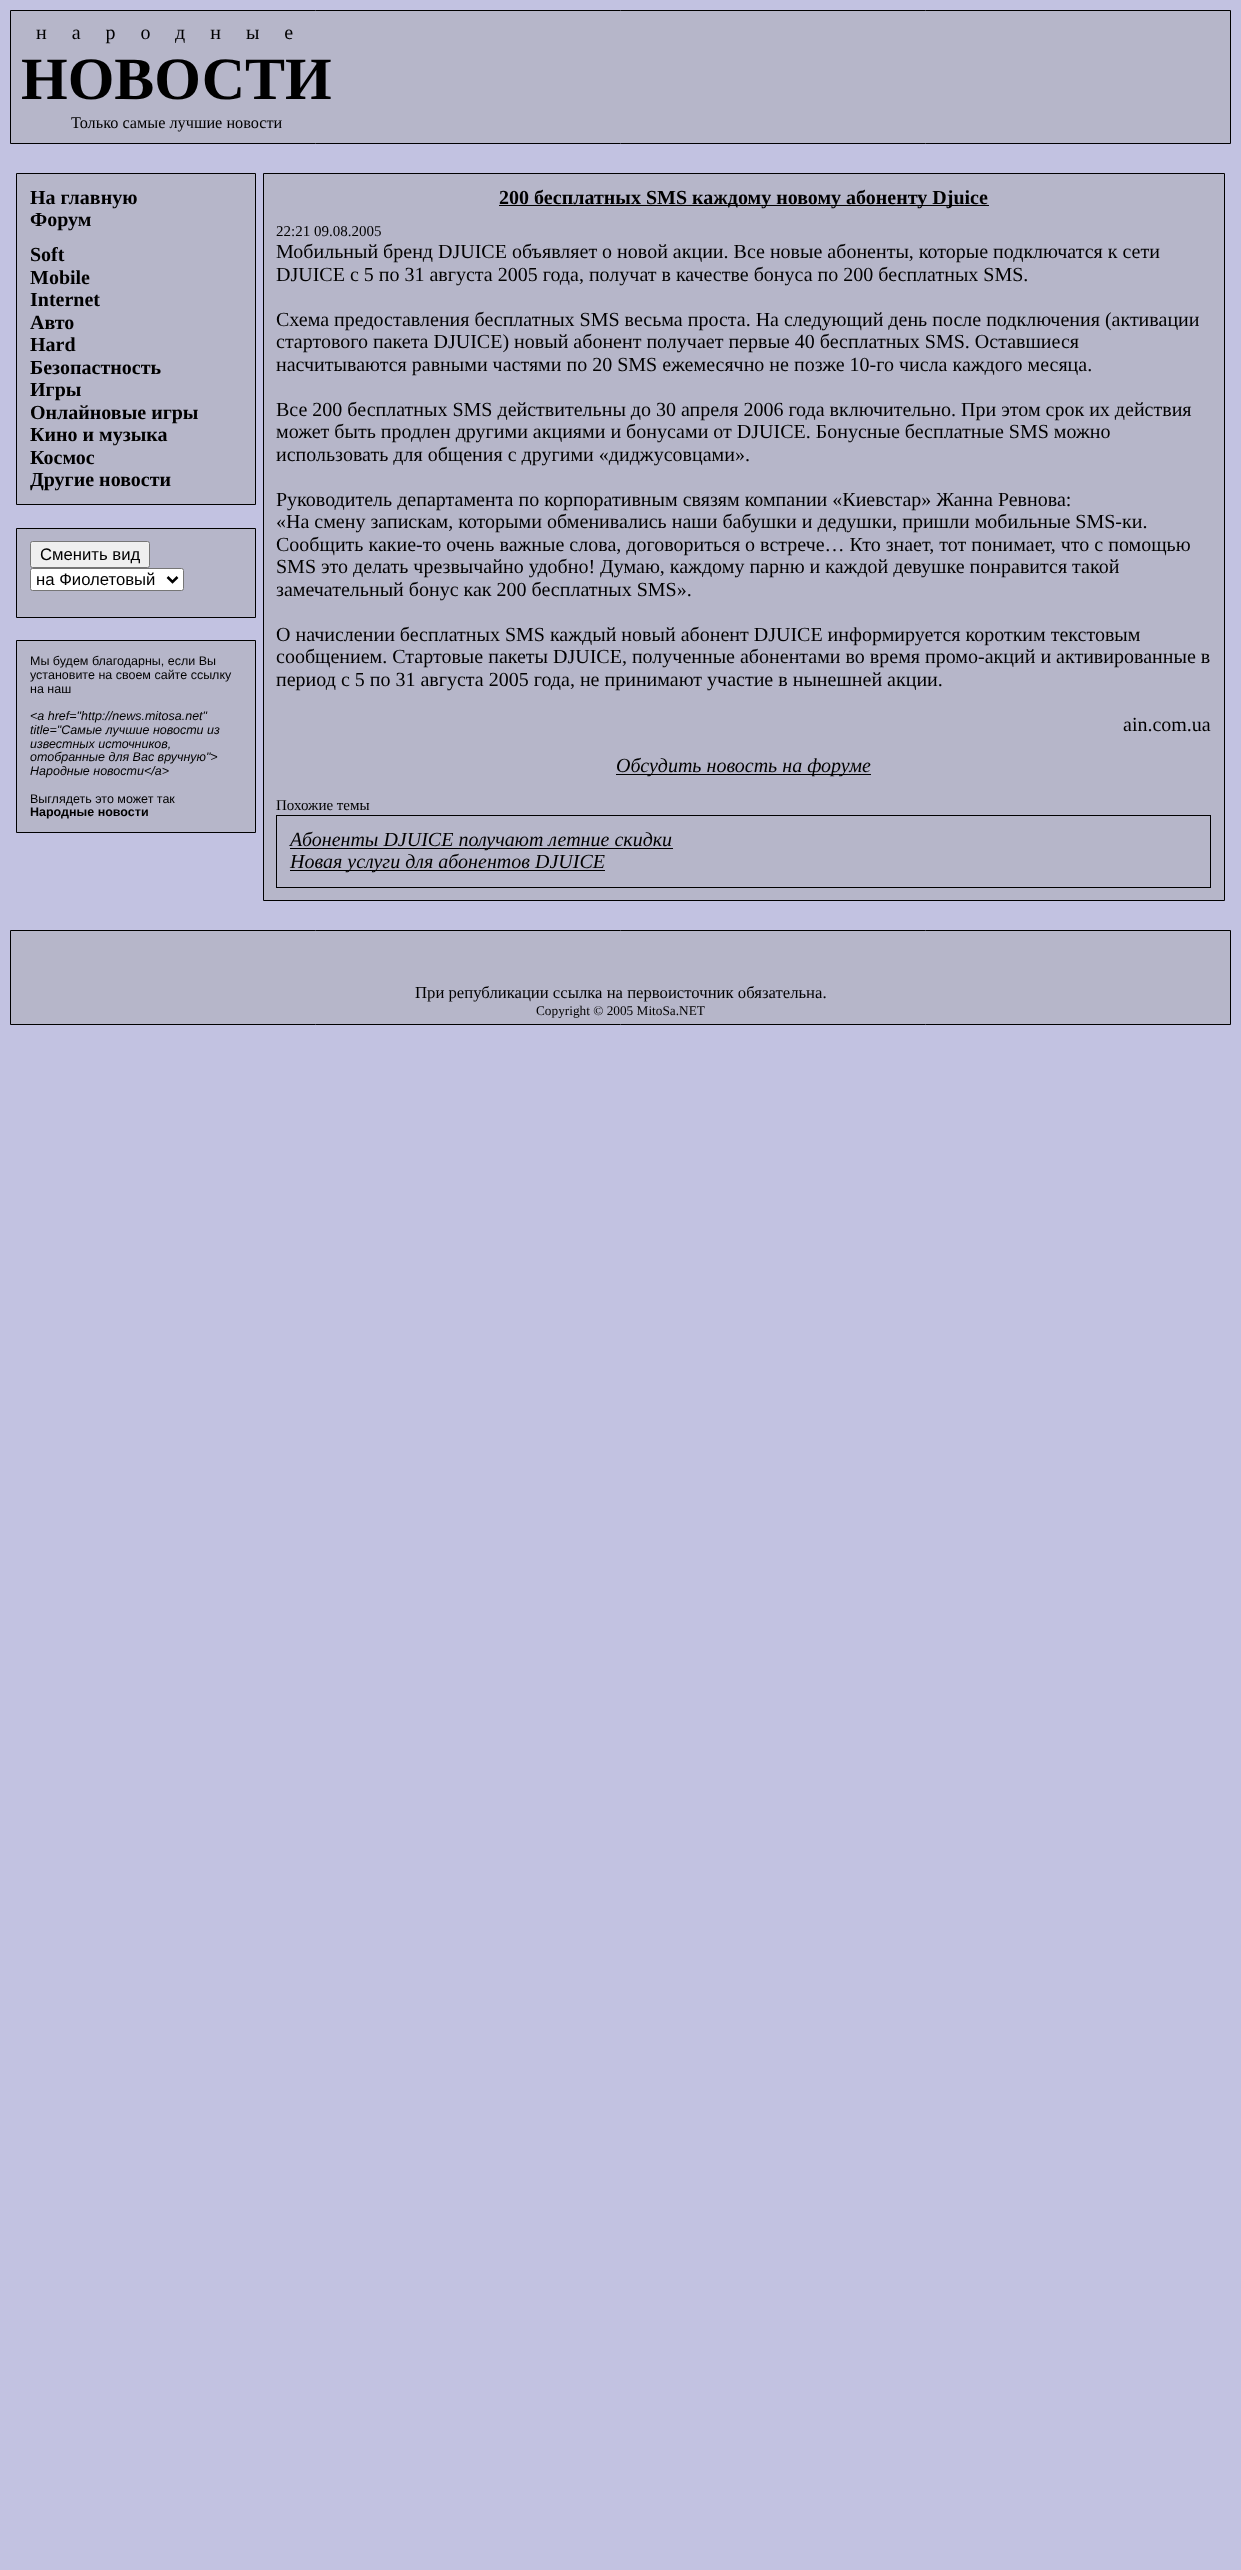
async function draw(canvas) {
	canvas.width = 1241;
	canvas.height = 2570;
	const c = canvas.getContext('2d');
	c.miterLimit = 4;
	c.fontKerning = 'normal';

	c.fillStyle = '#c2c2e1';
	c.fillRect(0, 0, 1241, 2570);
	c.fillStyle = '#b6b6c9';
	c.beginPath();
	c.rect(10.5, 10.5, 1220, 133);
	c.fill();
	c.strokeStyle = '#000';
	c.stroke();
	c.letterSpacing = '25px';
	c.font = '20px Liberation Serif';
	c.fillStyle = '#000';
	c.fillText('народные', 36, 39);
	c.letterSpacing = '0px';
	c.font = 'bold 60px Liberation Serif';
	c.fillText('НОВОСТИ', 21, 99);
	c.font = '16.25px Liberation Serif';
	c.fillText('Только самые лучшие новости', 71, 128);
	c.fillStyle = '#b6b6c9';
	c.beginPath();
	c.rect(16.5, 173.5, 239, 331);
	c.fill();
	c.stroke();
	c.font = 'bold 20px Liberation Serif';
	c.fillStyle = '#000';
	for (const [text, x, y] of [
		['На главную', 30, 204],
		['Форум', 30, 226],
		['Soft', 30, 261],
		['Mobile', 30, 284],
		['Internet', 30, 306],
		['Авто', 30, 329],
		['Hard', 30, 351],
		['Безопастность', 30, 374],
		['Игры', 30, 396],
		['Онлайновые игры', 30, 419],
		['Кино и музыка', 30, 441],
		['Космос', 30, 464],
		['Другие новости', 30, 486],
	]) {
		c.fillText(text, x, y);
	}
	c.fillStyle = '#b6b6c9';
	c.beginPath();
	c.rect(16.5, 528.5, 239, 89);
	c.fill();
	c.stroke();
	c.fillStyle = '#efefef';
	c.beginPath();
	c.roundRect(30.5, 541.5, 119, 26, 2);
	c.fill();
	c.strokeStyle = '#767676';
	c.stroke();
	c.font = '16.7px Liberation Sans';
	c.fillStyle = '#000';
	c.fillText('Сменить вид', 40, 560);
	c.fillStyle = '#fff';
	c.beginPath();
	c.roundRect(30.5, 568.5, 153, 22, 2);
	c.fill();
	c.stroke();
	c.beginPath();
	c.moveTo(167.5, 577);
	c.lineTo(172.5, 582);
	c.lineTo(177.5, 577);
	c.strokeStyle = '#000';
	c.lineWidth = 2.5;
	c.stroke();
	c.fillStyle = '#000';
	c.fillText('на Фиолетовый', 36, 585);
	c.fillStyle = '#b6b6c9';
	c.beginPath();
	c.rect(16.5, 640.5, 239, 192);
	c.fill();
	c.lineWidth = 1;
	c.stroke();
	c.font = '12.5px Liberation Sans';
	c.fillStyle = '#000';
	for (const [text, x, y] of [
		['Мы будем благодарны, если Вы', 30, 665],
		['установите на своем сайте ссылку', 30, 679],
		['на наш', 30, 693],
	]) {
		c.fillText(text, x, y);
	}
	c.font = 'italic 12.5px Liberation Sans';
	for (const [text, x, y] of [
		['<a href="http://news.mitosa.net"', 30, 720],
		['title="Самые лучшие новости из', 30, 734],
		['известных источников,', 30, 748],
		['отобранные для Вас вручную">', 30, 761],
		['Народные новости<\/a>', 30, 775],
	]) {
		c.fillText(text, x, y);
	}
	c.font = '12.5px Liberation Sans';
	c.fillText('Выглядеть это может так', 30, 803);
	c.font = 'bold 12.5px Liberation Sans';
	c.fillText('Народные новости', 30, 816);
	c.fillStyle = '#b6b6c9';
	c.beginPath();
	c.rect(263.5, 173.5, 961, 727);
	c.fill();
	c.stroke();
	c.fillStyle = '#000';
	c.fillRect(499, 205, 490, 1);
	c.font = 'bold 20px Liberation Serif';
	c.fillText('200 бесплатных SMS каждому новому абоненту Djuice', 499, 204);
	c.font = '15px Liberation Serif';
	c.fillText('22:21 09.08.2005', 276, 236);
	c.font = '20px Liberation Serif';
	for (const [text, x, y] of [
		['Мобильный бренд DJUICE объявляет о новой акции. Все новые абоненты, которые подключатся к сети', 276, 258],
		['DJUICE с 5 по 31 августа 2005 года, получат в качестве бонуса по 200 бесплатных SMS.', 276, 281],
		['Схема предоставления бесплатных SMS весьма проста. На следующий день после подключения (активации', 276, 326],
		['стартового пакета DJUICE) новый абонент получает первые 40 бесплатных SMS. Оставшиеся', 276, 348],
		['насчитываются равными частями по 20 SMS ежемесячно не позже 10-го числа каждого месяца.', 276, 371],
		['Все 200 бесплатных SMS действительны до 30 апреля 2006 года включительно. При этом срок их действия', 276, 416],
		['может быть продлен другими акциями и бонусами от DJUICE. Бонусные бесплатные SMS можно', 276, 438],
		['использовать для общения с другими «диджусовцами».', 276, 461],
		['Руководитель департамента по корпоративным связям компании «Киевстар» Жанна Ревнова:', 276, 506],
		['«На смену запискам, которыми обменивались наши бабушки и дедушки, пришли мобильные SMS-ки.', 276, 528],
		['Сообщить какие-то очень важные слова, договориться о встрече… Кто знает, тот понимает, что с помощью', 276, 551],
		['SMS это делать чрезвычайно удобно! Думаю, каждому парню и каждой девушке понравится такой', 276, 573],
		['замечательный бонус как 200 бесплатных SMS».', 276, 596],
		['О начислении бесплатных SMS каждый новый абонент DJUICE информируется коротким текстовым', 276, 641],
		['сообщением. Стартовые пакеты DJUICE, полученные абонентами во время промо-акций и активированные в', 276, 663],
		['период с 5 по 31 августа 2005 года, не принимают участие в нынешней акции.', 276, 686],
		['ain.com.ua', 1123, 731],
	]) {
		c.fillText(text, x, y);
	}
	c.fillRect(616, 774, 255, 1);
	c.font = 'italic 20px Liberation Serif';
	c.fillText('Обсудить новость на форуме', 616, 772);
	c.font = '15px Liberation Serif';
	c.fillText('Похожие темы', 276, 810);
	c.strokeRect(276.5, 815.5, 934, 72);
	c.fillRect(290, 848, 383, 1);
	c.font = 'italic 20px Liberation Serif';
	c.fillText('Абоненты DJUICE получают летние скидки', 290, 846);
	c.fillRect(290, 870, 315, 1);
	c.fillText('Новая услуги для абонентов DJUICE', 290, 868);
	c.fillStyle = '#b6b6c9';
	c.beginPath();
	c.rect(10.5, 930.5, 1220, 94);
	c.fill();
	c.stroke();
	c.font = '16.7px Liberation Serif';
	c.fillStyle = '#000';
	c.fillText('При републикации ссылка на первоисточник обязательна.', 415, 998);
	c.font = '13.3px Liberation Serif';
	c.fillText('Copyright © 2005 MitoSa.NET', 536, 1015);
}

draw(document.querySelector('canvas'));
